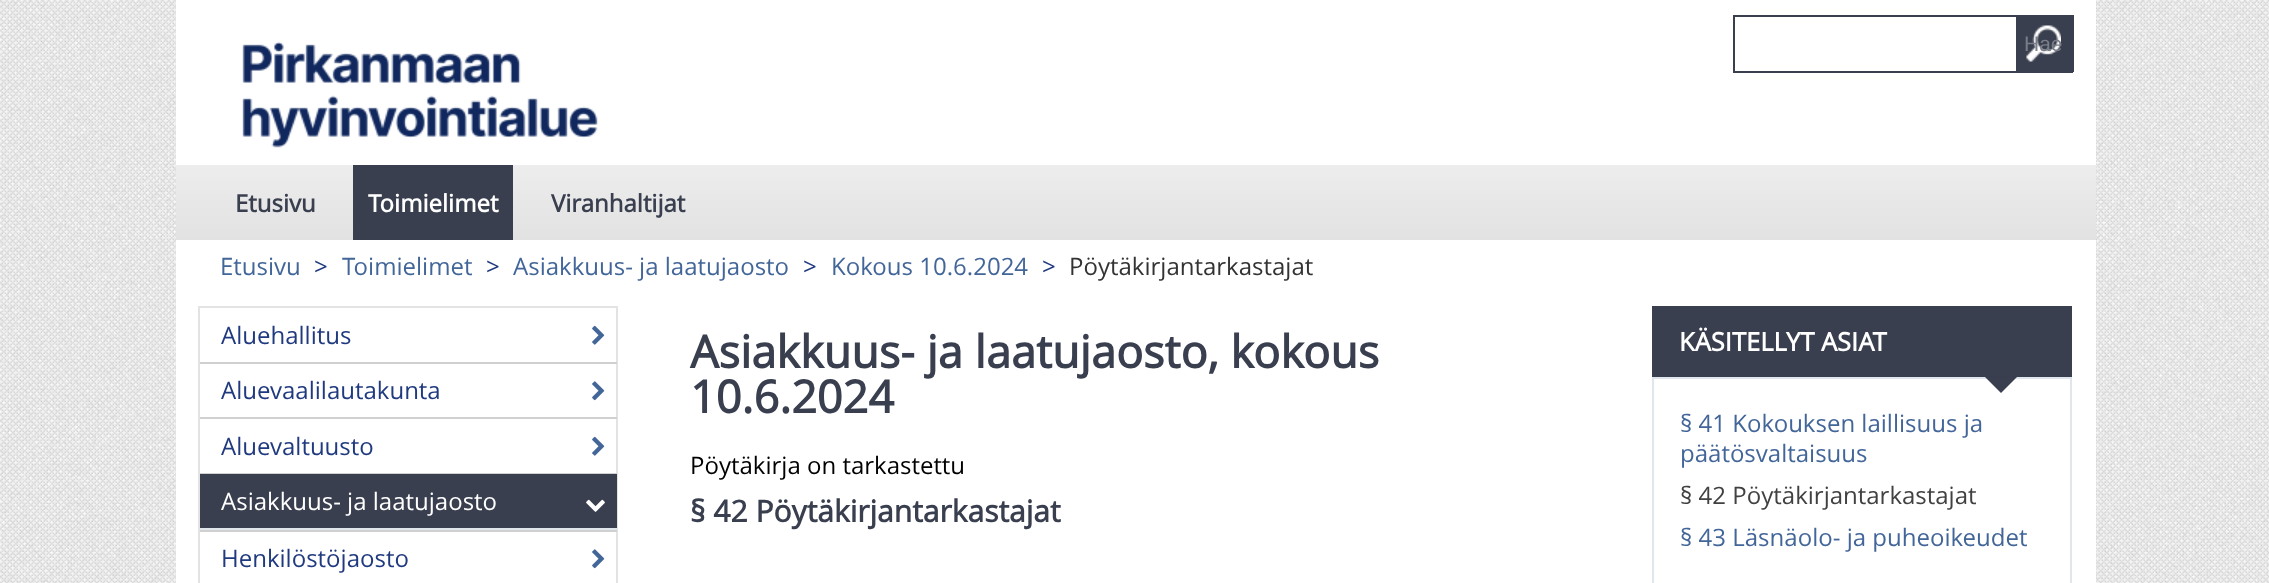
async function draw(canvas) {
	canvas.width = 2269;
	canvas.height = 583;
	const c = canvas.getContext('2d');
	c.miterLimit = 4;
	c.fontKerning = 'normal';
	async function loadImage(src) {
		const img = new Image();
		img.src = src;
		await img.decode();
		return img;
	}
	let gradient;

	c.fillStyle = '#fff';
	c.fillRect(0, 0, 2269, 583);
	c.drawImage(await loadImage('img1.png'), 0, 0, 2269, 583);
	c.fillRect(176, 0, 1920, 165);
	c.drawImage(await loadImage('img2.png'), 242, 41, 356, 107);
	for (const [x, y, w, h, color] of [
		[1733, 15, 283, 2, '#393f4e'],
		[1733, 71, 283, 2, '#393f4e'],
		[1733, 15, 2, 57, '#393f4e'],
		[2016, 15, 56, 56, '#393f4e'],
	]) {
		c.fillStyle = color;
		c.fillRect(x, y, w, h);
	}
	c.drawImage(await loadImage('img3.png'), 2026, 25, 35, 37);
	c.fillRect(2072, 15, 2, 57);
	c.fillRect(2016, 71, 57, 2);
	c.font = '21px Liberation Sans';
	c.fillStyle = '#7a7e88';
	c.fillText('Hae', 2024, 51);
	gradient = c.createLinearGradient(1136, 165, 1136, 240);
	gradient.addColorStop(0, '#ededed');
	gradient.addColorStop(1, '#e2e2e2');
	c.fillStyle = gradient;
	c.fillRect(176, 165, 1920, 75);
	c.font = 'bold 24px Open Sans';
	c.fillStyle = '#393f4e';
	c.fillText('Etusivu', 235, 212);
	c.fillRect(353, 165, 160, 75);
	c.fillStyle = '#fff';
	c.fillText('Toimielimet', 368, 212);
	c.fillStyle = '#393f4e';
	c.fillText('Viranhaltijat', 551, 212);
	c.fillStyle = '#fff';
	c.fillRect(176, 240, 1920, 343);
	c.font = '24px Open Sans';
	c.fillStyle = '#436699';
	c.fillText('Etusivu', 220, 275);
	c.fillStyle = '#203a7f';
	c.fillText('>', 314, 275);
	c.fillStyle = '#436699';
	c.fillText('Toimielimet', 342, 275);
	c.fillStyle = '#203a7f';
	c.fillText('>', 486, 275);
	c.fillStyle = '#436699';
	c.fillText('Asiakkuus- ja laatujaosto', 513, 275);
	c.fillStyle = '#203a7f';
	c.fillText('>', 803, 275);
	c.fillStyle = '#436699';
	c.fillText('Kokous 10.6.2024', 831, 275);
	c.fillStyle = '#203a7f';
	c.fillText('>', 1042, 275);
	c.fillStyle = '#333';
	c.fillText('Pöytäkirjantarkastajat', 1069, 275);
	c.strokeStyle = '#e3e3e3';
	c.lineWidth = 2;
	c.strokeRect(199, 307, 418, 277);
	c.fillStyle = '#d0d0d0';
	c.fillRect(200, 362, 417, 2);
	c.fillStyle = '#203a7f';
	c.fillText('Aluehallitus', 221, 344);
	c.drawImage(await loadImage('img4.png'), 592, 325, 13, 20);
	c.fillStyle = '#d0d0d0';
	c.fillRect(200, 417, 417, 2);
	c.fillStyle = '#203a7f';
	c.fillText('Aluevaalilautakunta', 221, 399);
	c.drawImage(await loadImage('img5.png'), 592, 381, 13, 20);
	c.fillStyle = '#d0d0d0';
	c.fillRect(200, 473, 417, 1);
	c.fillStyle = '#203a7f';
	c.fillText('Aluevaltuusto', 221, 455);
	c.drawImage(await loadImage('img4.png'), 592, 436, 13, 20);
	for (const [x, y, w, h, color] of [
		[200, 530, 417, 2, '#d0d0d0'],
		[200, 474, 417, 54, '#393f4e'],
		[200, 528, 417, 2, '#dfe7ed'],
	]) {
		c.fillStyle = color;
		c.fillRect(x, y, w, h);
	}
	c.fillStyle = '#fff';
	c.fillText('Asiakkuus- ja laatujaosto', 221, 510);
	c.drawImage(await loadImage('img6.png'), 586, 499, 19, 13);
	c.fillStyle = '#203a7f';
	c.fillText('Henkilöstöjaosto', 221, 567);
	c.drawImage(await loadImage('img5.png'), 592, 549, 13, 20);
	c.font = 'bold 45px Open Sans';
	c.fillStyle = '#393f4e';
	c.fillText('Asiakkuus- ja laatujaosto, kokous', 690, 368);
	c.fillText('10.6.2024', 690, 413);
	c.font = '24px Open Sans';
	c.fillStyle = '#000';
	c.fillText('Pöytäkirja on tarkastettu', 690, 474);
	c.font = 'bold 30px Open Sans';
	c.fillStyle = '#393f4e';
	c.fillText('§ 42 Pöytäkirjantarkastajat', 690, 522);
	c.fillRect(1652, 306, 420, 71);
	c.font = 'bold 25.5px Open Sans';
	c.fillStyle = '#fff';
	c.fillText('KÄSITELLYT ASIAT', 1679, 351);
	c.strokeStyle = '#dfe7ed';
	c.strokeRect(1653, 378, 418, 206);
	c.fillStyle = '#393f4e';
	c.beginPath();
	c.moveTo(1984.5, 376.5);
	c.lineTo(2017.5, 376.5);
	c.lineTo(2001, 393);
	c.closePath();
	c.fill();
	c.font = '24px Open Sans';
	c.fillStyle = '#436699';
	c.fillText('§ 41 Kokouksen laillisuus ja', 1680, 432);
	c.fillText('päätösvaltaisuus', 1680, 462);
	c.fillStyle = '#414141';
	c.fillText('§ 42 Pöytäkirjantarkastajat', 1680, 504);
	c.fillStyle = '#436699';
	c.fillText('§ 43 Läsnäolo- ja puheoikeudet', 1680, 546);
}

draw(document.querySelector('canvas'));
